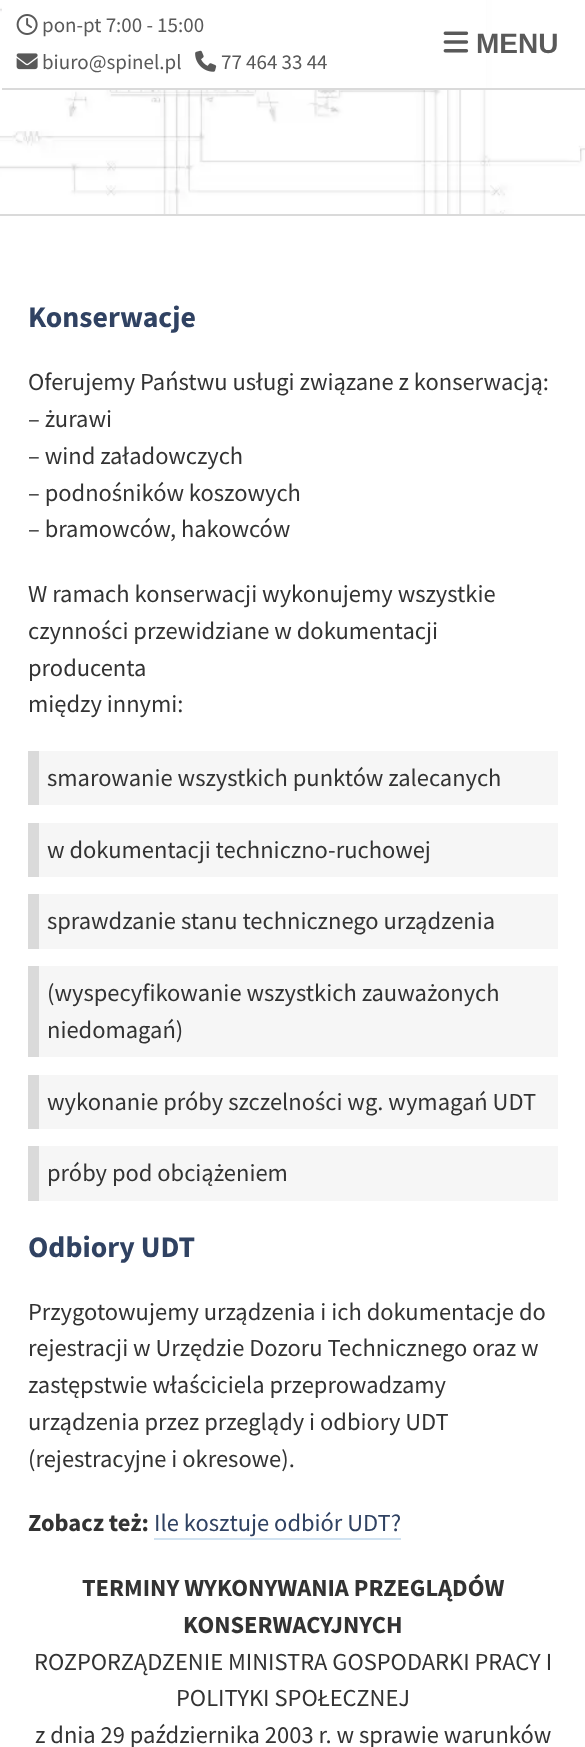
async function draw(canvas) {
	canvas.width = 585;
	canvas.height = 1747;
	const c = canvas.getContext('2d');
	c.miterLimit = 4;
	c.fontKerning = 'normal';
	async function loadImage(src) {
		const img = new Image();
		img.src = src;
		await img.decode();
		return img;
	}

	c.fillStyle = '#fff';
	c.fillRect(0, 0, 585, 1747);
	c.drawImage(await loadImage('img1.png'), 0, 0, 585, 214);
	for (const [x, y, w, h, color] of [
		[0, 214, 585, 2, '#dadada'],
		[2, 0, 484, 88, '#fff'],
		[2, 88, 583, 2, '#dadada'],
	]) {
		c.fillStyle = color;
		c.fillRect(x, y, w, h);
	}
	c.drawImage(await loadImage('img2.png'), 16, 14, 22, 21);
	c.font = '21px Source Sans Pro';
	c.fillStyle = '#595959';
	c.fillText('pon-pt 7:00 - 15:00', 42, 32);
	c.drawImage(await loadImage('img3.png'), 16, 53, 22, 17);
	c.fillText('biuro@spinel.pl', 42, 69);
	c.drawImage(await loadImage('img4.png'), 195, 50, 22, 22);
	c.fillText('77 464 33 44', 221, 69);
	c.drawImage(await loadImage('img5.png'), 443, 31, 26, 22);
	c.font = 'bold 28px Liberation Sans';
	c.fillText('MENU', 476, 53);
	c.font = 'bold 29.75px Source Sans Pro';
	c.fillStyle = '#304262';
	c.fillText('Konserwacje', 28, 327);
	c.font = '24.5px Source Sans Pro';
	c.fillStyle = '#333';
	for (const [text, x, y] of [
		['Oferujemy Państwu usługi związane z konserwacją:', 28, 390],
		['– żurawi', 28, 427],
		['– wind załadowczych', 28, 464],
		['– podnośników koszowych', 28, 501],
		['– bramowców, hakowców', 28, 537],
		['W ramach konserwacji wykonujemy wszystkie', 28, 602],
		['czynności przewidziane w dokumentacji', 28, 639],
		['producenta', 28, 676],
		['między innymi:', 28, 712],
	]) {
		c.fillText(text, x, y);
	}
	c.fillStyle = '#f6f6f6';
	c.fillRect(39, 751, 519, 54);
	c.fillStyle = '#dadada';
	c.fillRect(28, 751, 11, 54);
	c.fillStyle = '#333';
	c.fillText('smarowanie wszystkich punktów zalecanych', 47, 786);
	c.fillStyle = '#f6f6f6';
	c.fillRect(39, 823, 519, 54);
	c.fillStyle = '#dadada';
	c.fillRect(28, 823, 11, 54);
	c.fillStyle = '#333';
	c.fillText('w dokumentacji techniczno-ruchowej', 47, 858);
	c.fillStyle = '#f6f6f6';
	c.fillRect(39, 894, 519, 55);
	c.fillStyle = '#dadada';
	c.fillRect(28, 894, 11, 55);
	c.fillStyle = '#333';
	c.fillText('sprawdzanie stanu technicznego urządzenia', 47, 929);
	c.fillStyle = '#f6f6f6';
	c.fillRect(39, 966, 519, 91);
	c.fillStyle = '#dadada';
	c.fillRect(28, 966, 11, 91);
	c.fillStyle = '#333';
	c.fillText('(wyspecyfikowanie wszystkich zauważonych', 47, 1001);
	c.fillText('niedomagań)', 47, 1038);
	c.fillStyle = '#f6f6f6';
	c.fillRect(39, 1075, 519, 54);
	c.fillStyle = '#dadada';
	c.fillRect(28, 1075, 11, 54);
	c.fillStyle = '#333';
	c.fillText('wykonanie próby szczelności wg. wymagań UDT', 47, 1110);
	c.fillStyle = '#f6f6f6';
	c.fillRect(39, 1146, 519, 55);
	c.fillStyle = '#dadada';
	c.fillRect(28, 1146, 11, 55);
	c.fillStyle = '#333';
	c.fillText('próby pod obciążeniem', 47, 1181);
	c.font = 'bold 29.75px Source Sans Pro';
	c.fillStyle = '#304262';
	c.fillText('Odbiory UDT', 28, 1257);
	c.font = '24.5px Source Sans Pro';
	c.fillStyle = '#333';
	for (const [text, x, y] of [
		['Przygotowujemy urządzenia i ich dokumentacje do', 28, 1320],
		['rejestracji w Urzędzie Dozoru Technicznego oraz w', 28, 1356],
		['zastępstwie właściciela przeprowadzamy', 28, 1393],
		['urządzenia przez przeglądy i odbiory UDT', 28, 1430],
		['(rejestracyjne i okresowe).', 28, 1467],
	]) {
		c.fillText(text, x, y);
	}
	c.font = 'bold 24.5px Source Sans Pro';
	c.fillText('Zobacz też:', 28, 1531);
	c.font = '24.5px Source Sans Pro';
	c.fillStyle = '#304262';
	c.fillText('Ile kosztuje odbiór UDT?', 154, 1531);
	c.fillStyle = '#d0e2f1';
	c.fillRect(154, 1538, 247, 2);
	c.font = 'bold 24.5px Source Sans Pro';
	c.fillStyle = '#333';
	c.fillText('TERMINY WYKONYWANIA PRZEGLĄDÓW', 82, 1596);
	c.fillText('KONSERWACYJNYCH', 183, 1633);
	c.font = '24.5px Source Sans Pro';
	for (const [text, x, y] of [
		['ROZPORZĄDZENIE MINISTRA GOSPODARKI PRACY I', 34, 1670],
		['POLITYKI SPOŁECZNEJ', 176, 1706],
		['z dnia 29 października 2003 r. w sprawie warunków', 35, 1743],
	]) {
		c.fillText(text, x, y);
	}
}

draw(document.querySelector('canvas'));
